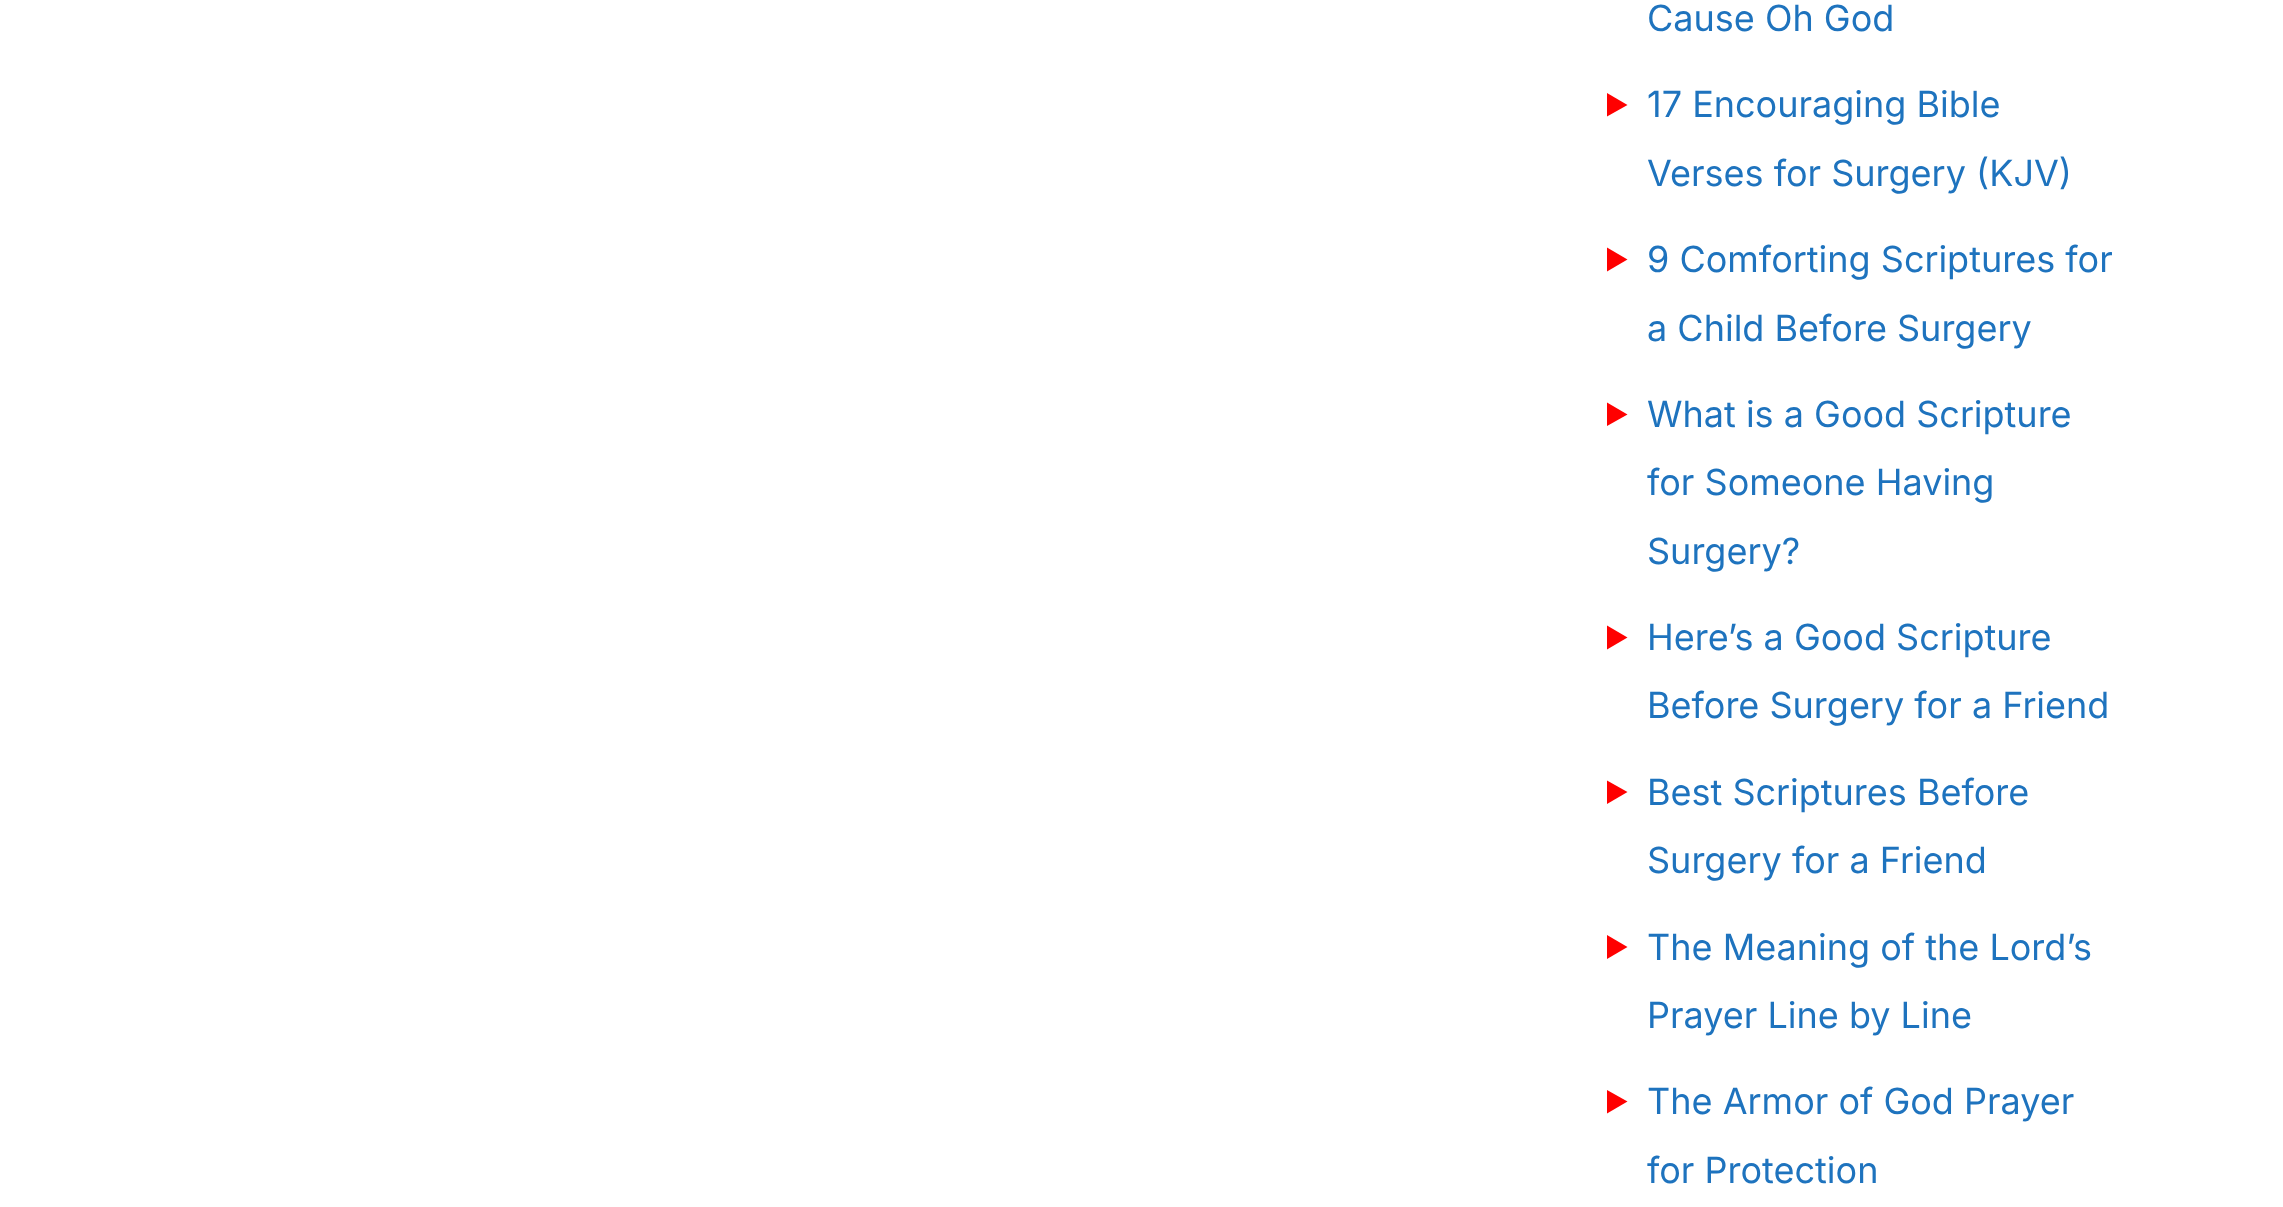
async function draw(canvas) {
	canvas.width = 2283;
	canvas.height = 1207;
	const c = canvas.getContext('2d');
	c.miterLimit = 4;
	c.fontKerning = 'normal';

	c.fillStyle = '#fff';
	c.fillRect(0, 0, 2283, 1207);
	c.font = '36px Inter';
	c.fillStyle = '#1e73be';
	c.fillText('Cause Oh God', 1647, 31);
	c.fillStyle = '#f00';
	c.beginPath();
	c.moveTo(1607, 93);
	c.lineTo(1627.5, 105);
	c.lineTo(1607, 116.5);
	c.closePath();
	c.fill();
	c.fillStyle = '#1e73be';
	c.fillText('17 Encouraging Bible', 1647, 117);
	c.fillText('Verses for Surgery (KJV)', 1647, 186);
	c.fillStyle = '#f00';
	c.beginPath();
	c.moveTo(1607, 247.5);
	c.lineTo(1627.5, 259.5);
	c.lineTo(1607, 271.5);
	c.closePath();
	c.fill();
	c.fillStyle = '#1e73be';
	c.fillText('9 Comforting Scriptures for', 1647, 272);
	c.fillText('a Child Before Surgery', 1647, 341);
	c.fillStyle = '#f00';
	c.beginPath();
	c.moveTo(1607, 402.5);
	c.lineTo(1627.5, 414.5);
	c.lineTo(1607, 426);
	c.closePath();
	c.fill();
	c.fillStyle = '#1e73be';
	for (const [text, x, y] of [
		['What is a Good Scripture', 1647, 427],
		['for Someone Having', 1647, 495],
		['Surgery?', 1647, 564],
	]) {
		c.fillText(text, x, y);
	}
	c.fillStyle = '#f00';
	c.beginPath();
	c.moveTo(1607, 625.5);
	c.lineTo(1627.5, 637.5);
	c.lineTo(1607, 649.5);
	c.closePath();
	c.fill();
	c.fillStyle = '#1e73be';
	c.fillText('Here’s a Good Scripture', 1647, 650);
	c.fillText('Before Surgery for a Friend', 1647, 718);
	c.fillStyle = '#f00';
	c.beginPath();
	c.moveTo(1607, 780.5);
	c.lineTo(1627.5, 792);
	c.lineTo(1607, 804);
	c.closePath();
	c.fill();
	c.fillStyle = '#1e73be';
	c.fillText('Best Scriptures Before', 1647, 805);
	c.fillText('Surgery for a Friend', 1647, 873);
	c.fillStyle = '#f00';
	c.beginPath();
	c.moveTo(1607, 935);
	c.lineTo(1627.5, 947);
	c.lineTo(1607, 959);
	c.closePath();
	c.fill();
	c.fillStyle = '#1e73be';
	c.fillText('The Meaning of the Lord’s', 1647, 960);
	c.fillText('Prayer Line by Line', 1647, 1028);
	c.fillStyle = '#f00';
	c.beginPath();
	c.moveTo(1607, 1090);
	c.lineTo(1627.5, 1101.5);
	c.lineTo(1607, 1113.5);
	c.closePath();
	c.fill();
	c.fillStyle = '#1e73be';
	c.fillText('The Armor of God Prayer', 1647, 1114);
	c.fillText('for Protection', 1647, 1183);
}

draw(document.querySelector('canvas'));
